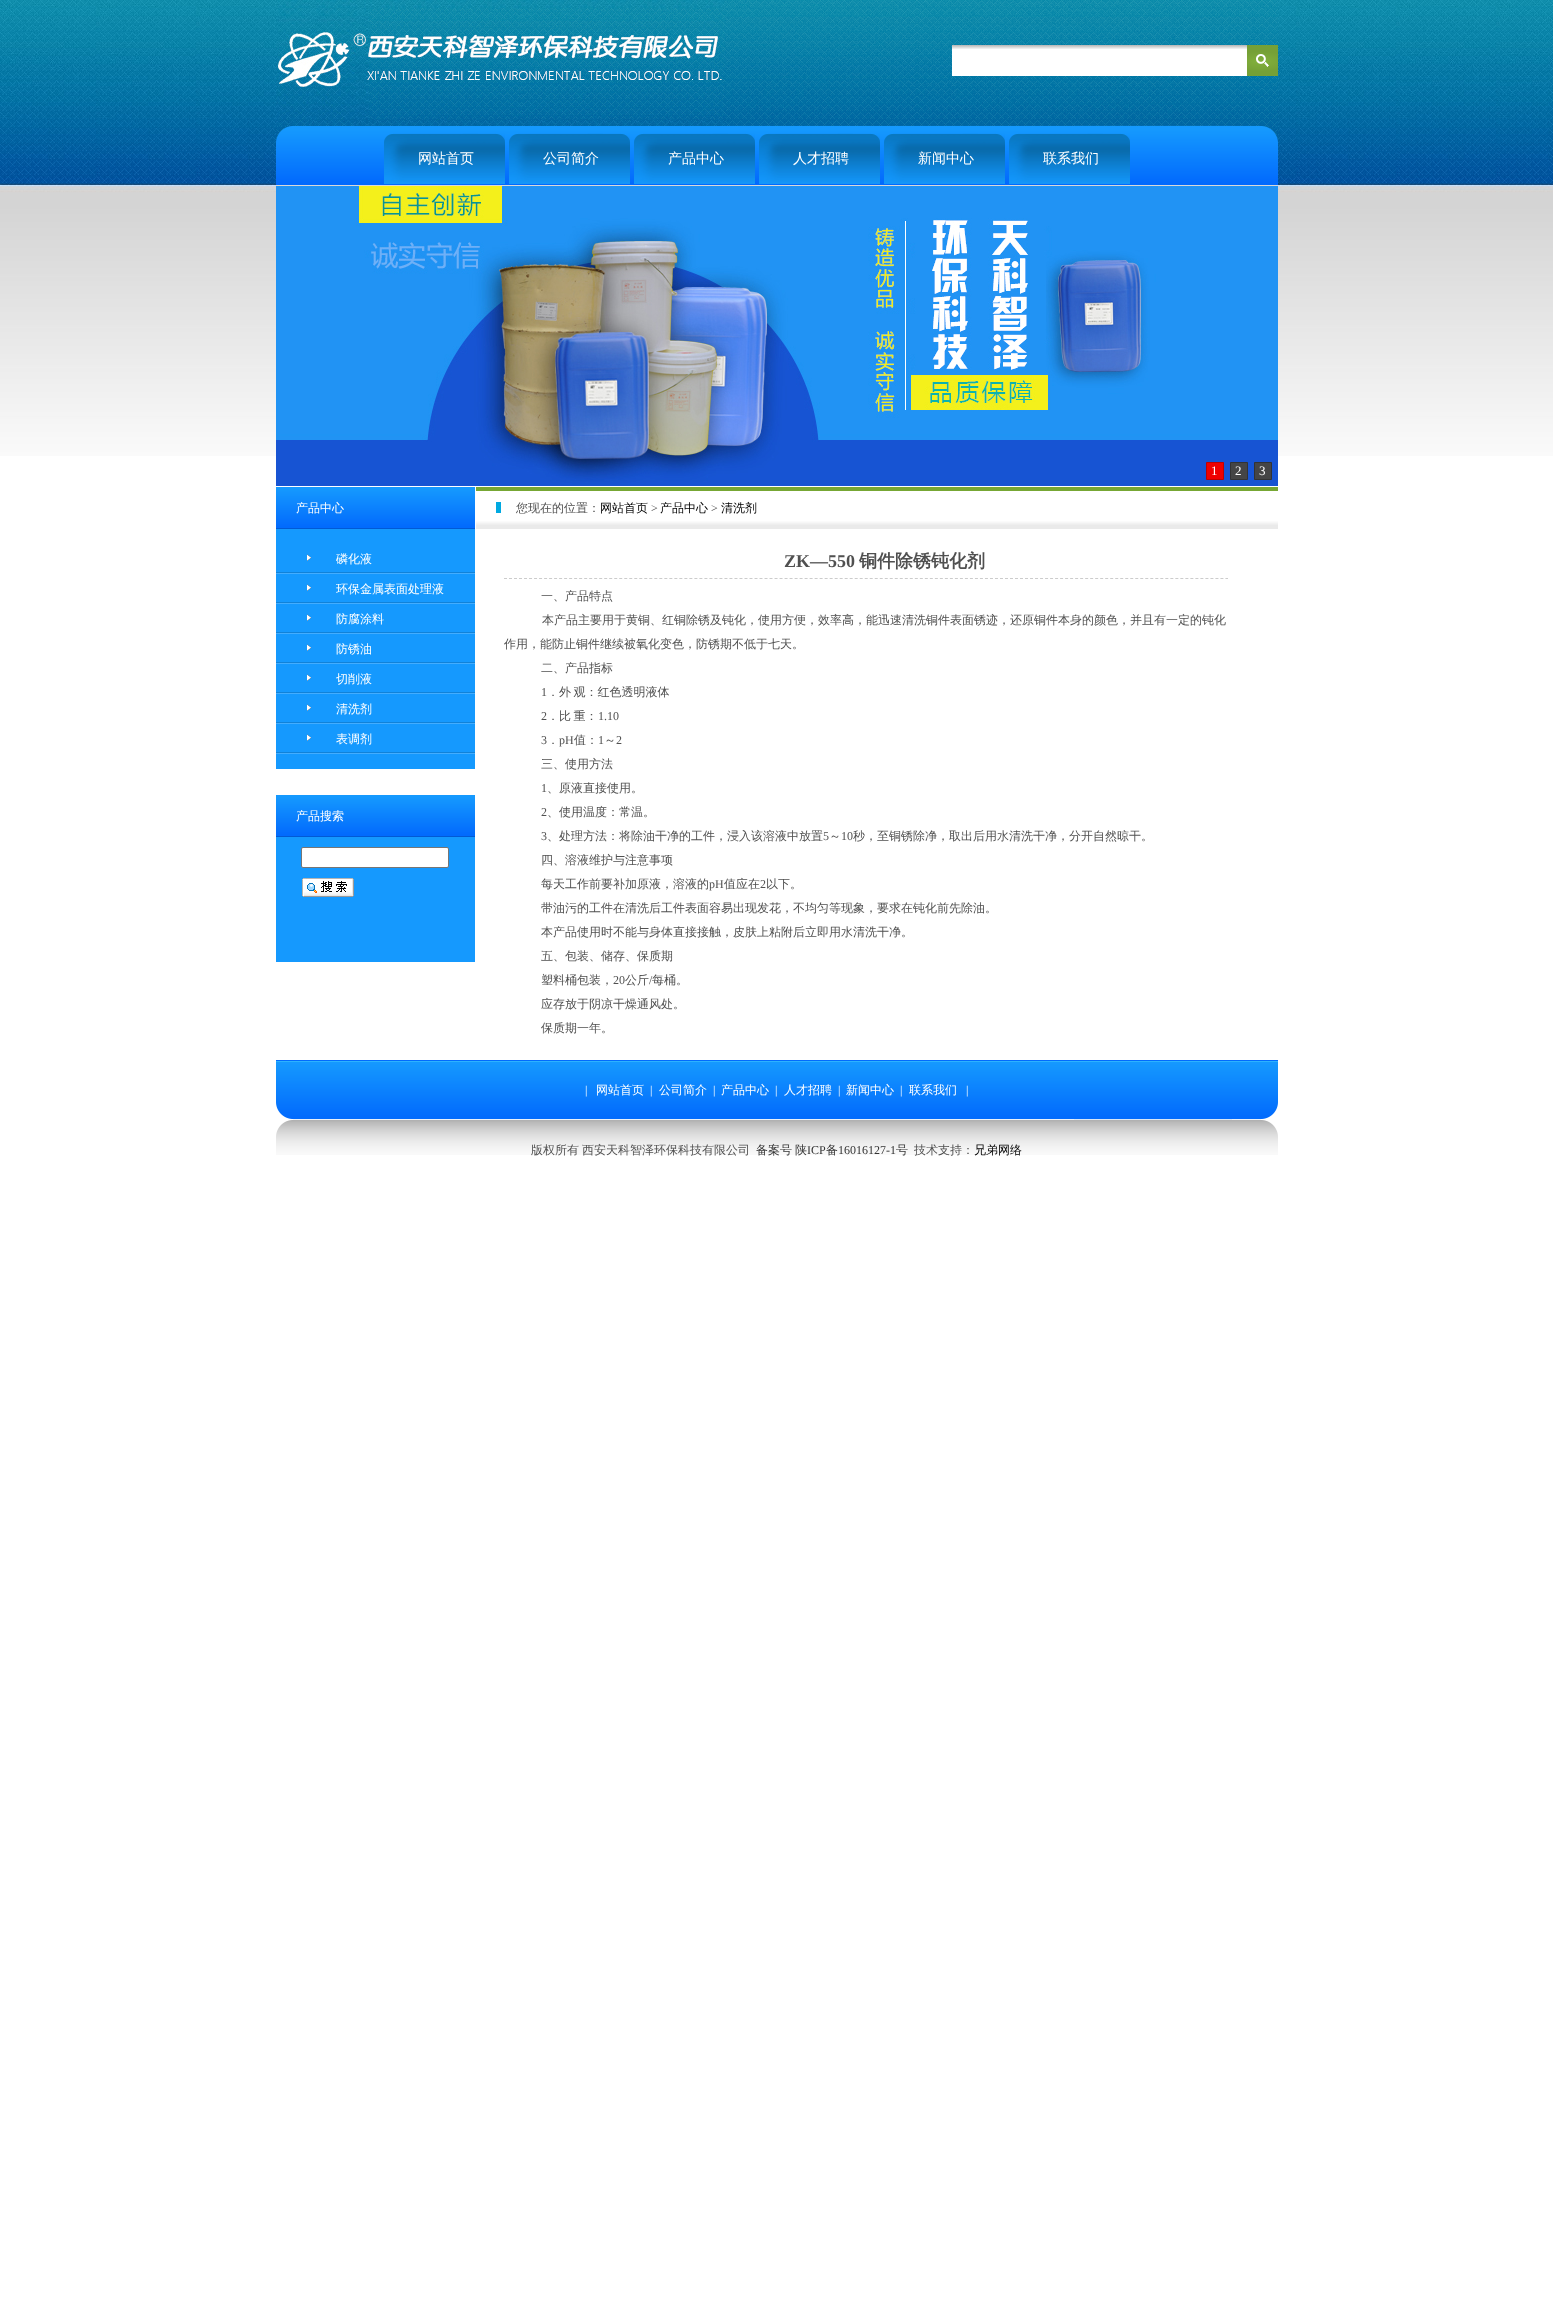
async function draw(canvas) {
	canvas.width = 1553;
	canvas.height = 2302;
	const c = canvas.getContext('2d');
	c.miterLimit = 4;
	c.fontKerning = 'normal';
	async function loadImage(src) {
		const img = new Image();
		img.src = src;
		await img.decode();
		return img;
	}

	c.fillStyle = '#fff';
	c.fillRect(0, 0, 1553, 2302);
	c.drawImage(await loadImage('img1.png'), 0, 0, 1553, 456);
	c.drawImage(await loadImage('img2.png'), 276, 0, 1002, 186);
	c.drawImage(await loadImage('img3.png'), 276, 0, 449, 126);
	c.drawImage(await loadImage('img4.png'), 952, 45, 295, 31);
	c.drawImage(await loadImage('img5.png'), 1247, 45, 31, 31);
	c.drawImage(await loadImage('img6.png'), 384, 133, 121, 51);
	c.font = '500 14px WenQuanYi Zen Hei';
	c.fillText('网站首页', 418, 163);
	c.drawImage(await loadImage('img6.png'), 509, 133, 121, 51);
	c.fillText('公司简介', 543, 163);
	c.drawImage(await loadImage('img6.png'), 634, 133, 121, 51);
	c.fillText('产品中心', 668, 163);
	c.drawImage(await loadImage('img6.png'), 759, 133, 121, 51);
	c.fillText('人才招聘', 793, 163);
	c.drawImage(await loadImage('img6.png'), 884, 133, 121, 51);
	c.fillText('新闻中心', 918, 163);
	c.drawImage(await loadImage('img6.png'), 1009, 133, 121, 51);
	c.fillText('联系我们', 1043, 163);
	c.drawImage(await loadImage('img7.png'), 276, 186, 1002, 300);
	c.fillStyle = '#ef0000';
	c.beginPath();
	c.rect(1206.5, 462.5, 17, 17);
	c.fill();
	c.strokeStyle = '#bf0000';
	c.stroke();
	c.font = '13px Liberation Serif';
	c.fillStyle = '#fff';
	c.fillText('1', 1211, 475);
	c.fillStyle = '#454545';
	c.beginPath();
	c.rect(1230.5, 462.5, 17, 17);
	c.fill();
	c.strokeStyle = '#333';
	c.stroke();
	c.fillStyle = '#fff';
	c.fillText('2', 1235, 475);
	c.fillStyle = '#454545';
	c.beginPath();
	c.rect(1254.5, 462.5, 17, 17);
	c.fill();
	c.stroke();
	c.fillStyle = '#fff';
	c.fillText('3', 1259, 475);
	c.drawImage(await loadImage('img8.png'), 276, 487, 199, 42);
	c.font = '500 12px WenQuanYi Zen Hei';
	c.fillText('产品中心', 296, 512);
	c.fillStyle = '#1599fe';
	c.fillRect(276, 529, 199, 240);
	c.drawImage(await loadImage('img9.png'), 276, 554, 199, 20);
	c.fillStyle = '#fff';
	c.fillText('磷化液', 336, 563);
	c.drawImage(await loadImage('img9.png'), 276, 584, 199, 20);
	c.fillText('环保金属表面处理液', 336, 593);
	c.drawImage(await loadImage('img9.png'), 276, 614, 199, 20);
	c.fillText('防腐涂料', 336, 623);
	c.drawImage(await loadImage('img9.png'), 276, 644, 199, 20);
	c.fillText('防锈油', 336, 653);
	c.drawImage(await loadImage('img9.png'), 276, 674, 199, 20);
	c.fillText('切削液', 336, 683);
	c.drawImage(await loadImage('img9.png'), 276, 704, 199, 20);
	c.fillText('清洗剂', 336, 713);
	c.drawImage(await loadImage('img9.png'), 276, 734, 199, 20);
	c.fillText('表调剂', 336, 743);
	c.drawImage(await loadImage('img8.png'), 276, 795, 199, 42);
	c.fillText('产品搜索', 296, 820);
	c.fillStyle = '#1599fe';
	c.fillRect(276, 837, 199, 125);
	c.fillStyle = '#fff';
	c.beginPath();
	c.roundRect(301.5, 847.5, 147, 20, 1.5);
	c.fill();
	c.strokeStyle = '#767676';
	c.stroke();
	c.drawImage(await loadImage('img10.png'), 302, 878, 52, 19);
	c.drawImage(await loadImage('img11.png'), 476, 487, 802, 42);
	c.fillStyle = '#505050';
	c.fillText('您现在的位置：', 516, 512);
	c.fillStyle = '#000';
	c.fillText('网站首页', 600, 512);
	c.font = '12px Liberation Serif';
	c.fillStyle = '#505050';
	c.fillText('>', 651, 512);
	c.font = '500 12px WenQuanYi Zen Hei';
	c.fillStyle = '#000';
	c.fillText('产品中心', 660, 512);
	c.font = '12px Liberation Serif';
	c.fillStyle = '#505050';
	c.fillText('>', 711, 512);
	c.font = '500 12px WenQuanYi Zen Hei';
	c.fillStyle = '#000';
	c.fillText('清洗剂', 721, 512);
	c.beginPath();
	c.moveTo(504, 578.5);
	c.lineTo(1228, 578.5);
	c.strokeStyle = '#ccc';
	c.setLineDash([3, 2.01]);
	c.stroke();
	c.font = 'bold 18px Liberation Serif';
	c.fillStyle = '#505050';
	c.fillText('ZK—550', 784, 567);
	c.font = 'bold 18px WenQuanYi Zen Hei';
	c.fillText('铜件除锈钝化剂', 859, 567);
	c.font = '500 12px WenQuanYi Zen Hei';
	for (const [text, x, y] of [
		['一、产品特点', 541, 600],
		['本产品主要用于黄铜、红铜除锈及钝化，使用方便，效率高，能迅速清洗铜件表面锈迹，还原铜件本身的颜色，并且有一定的钝化', 542, 624],
		['作用，能防止铜件继续被氧化变色，防锈期不低于七天。', 504, 648],
		['二、产品指标', 541, 672],
	]) {
		c.fillText(text, x, y);
	}
	c.font = '12px Liberation Serif';
	c.fillText('1', 541, 696);
	c.wordSpacing = '-1px';
	c.font = '500 12px WenQuanYi Zen Hei';
	c.fillText('．外 观：红色透明液体', 547, 696);
	c.wordSpacing = '0px';
	c.font = '12px Liberation Serif';
	c.fillText('2', 541, 720);
	c.wordSpacing = '-1px';
	c.font = '500 12px WenQuanYi Zen Hei';
	c.fillText('．比 重：', 547, 720);
	c.wordSpacing = '0px';
	c.font = '12px Liberation Serif';
	for (const [text, x, y] of [
		['1.10', 598, 720],
		['3', 541, 744],
		['pH', 559, 744],
	]) {
		c.fillText(text, x, y);
	}
	c.font = '500 12px WenQuanYi Zen Hei';
	c.fillText('值：', 574, 744);
	c.font = '12px Liberation Serif';
	c.fillText('1', 598, 744);
	c.font = '500 12px WenQuanYi Zen Hei';
	c.fillText('～', 604, 744);
	c.font = '12px Liberation Serif';
	c.fillText('2', 616, 744);
	c.font = '500 12px WenQuanYi Zen Hei';
	c.fillText('．', 547, 744);
	c.fillText('三、使用方法', 541, 768);
	c.font = '12px Liberation Serif';
	c.fillText('1', 541, 792);
	c.font = '500 12px WenQuanYi Zen Hei';
	c.fillText('、原液直接使用。', 547, 792);
	c.font = '12px Liberation Serif';
	c.fillText('2', 541, 816);
	c.font = '500 12px WenQuanYi Zen Hei';
	c.fillText('、使用温度：常温。', 547, 816);
	c.font = '12px Liberation Serif';
	c.fillText('3', 541, 840);
	c.font = '500 12px WenQuanYi Zen Hei';
	c.fillText('、处理方法：将除油干净的工件，浸入该溶液中放置', 547, 840);
	c.font = '12px Liberation Serif';
	c.fillText('5', 823, 840);
	c.font = '500 12px WenQuanYi Zen Hei';
	c.fillText('～', 829, 840);
	c.font = '12px Liberation Serif';
	c.fillText('10', 841, 840);
	c.font = '500 12px WenQuanYi Zen Hei';
	for (const [text, x, y] of [
		['秒，至铜锈除净，取出后用水清洗干净，分开自然晾干。', 853, 840],
		['四、溶液维护与注意事项', 541, 864],
		['每天工作前要补加原液，溶液的', 541, 888],
	]) {
		c.fillText(text, x, y);
	}
	c.font = '12px Liberation Serif';
	c.fillText('pH', 709, 888);
	c.font = '500 12px WenQuanYi Zen Hei';
	c.fillText('值应在', 724, 888);
	c.font = '12px Liberation Serif';
	c.fillText('2', 760, 888);
	c.font = '500 12px WenQuanYi Zen Hei';
	for (const [text, x, y] of [
		['以下。', 766, 888],
		['带油污的工件在清洗后工件表面容易出现发花，不均匀等现象，要求在钝化前先除油。', 541, 912],
		['本产品使用时不能与身体直接接触，皮肤上粘附后立即用水清洗干净。', 541, 936],
		['五、包装、储存、保质期', 541, 960],
		['塑料桶包装，', 541, 984],
	]) {
		c.fillText(text, x, y);
	}
	c.font = '12px Liberation Serif';
	c.fillText('20', 613, 984);
	c.font = '500 12px WenQuanYi Zen Hei';
	c.fillText('公斤', 625, 984);
	c.font = '12px Liberation Serif';
	c.fillText('/', 649, 984);
	c.font = '500 12px WenQuanYi Zen Hei';
	for (const [text, x, y] of [
		['每桶。', 652, 984],
		['应存放于阴凉干燥通风处。', 541, 1008],
		['保质期一年。', 541, 1032],
	]) {
		c.fillText(text, x, y);
	}
	c.drawImage(await loadImage('img12.png'), 276, 1060, 1002, 95);
	c.font = '12px Liberation Serif';
	c.fillStyle = '#fff';
	c.fillText('|', 585, 1094);
	c.font = '500 12px WenQuanYi Zen Hei';
	c.fillText('网站首页', 596, 1094);
	c.font = '12px Liberation Serif';
	c.fillText('|', 650, 1094);
	c.font = '500 12px WenQuanYi Zen Hei';
	c.fillText('公司简介', 659, 1094);
	c.font = '12px Liberation Serif';
	c.fillText('|', 713, 1094);
	c.font = '500 12px WenQuanYi Zen Hei';
	c.fillText('产品中心', 721, 1094);
	c.font = '12px Liberation Serif';
	c.fillText('|', 775, 1094);
	c.font = '500 12px WenQuanYi Zen Hei';
	c.fillText('人才招聘', 784, 1094);
	c.font = '12px Liberation Serif';
	c.fillText('|', 838, 1094);
	c.font = '500 12px WenQuanYi Zen Hei';
	c.fillText('新闻中心', 846, 1094);
	c.font = '12px Liberation Serif';
	c.fillText('|', 900, 1094);
	c.font = '500 12px WenQuanYi Zen Hei';
	c.fillText('联系我们', 909, 1094);
	c.font = '12px Liberation Serif';
	c.fillText('|', 966, 1094);
	c.font = '500 12px WenQuanYi Zen Hei';
	c.fillStyle = '#505050';
	c.fillText('版权所有', 531, 1154);
	c.fillText('西安天科智泽环保科技有限公司', 582, 1154);
	c.fillStyle = '#333';
	c.fillText('备案号', 756, 1154);
	c.fillText('陕', 795, 1154);
	c.font = '12px Liberation Serif';
	c.fillText('ICP', 807, 1154);
	c.font = '500 12px WenQuanYi Zen Hei';
	c.fillText('备', 826, 1154);
	c.font = '12px Liberation Serif';
	c.fillText('16016127-1', 838, 1154);
	c.font = '500 12px WenQuanYi Zen Hei';
	c.fillText('号', 896, 1154);
	c.fillStyle = '#505050';
	c.fillText('技术支持：', 914, 1154);
	c.fillStyle = '#000';
	c.fillText('兄弟网络', 974, 1154);
}

draw(document.querySelector('canvas'));
